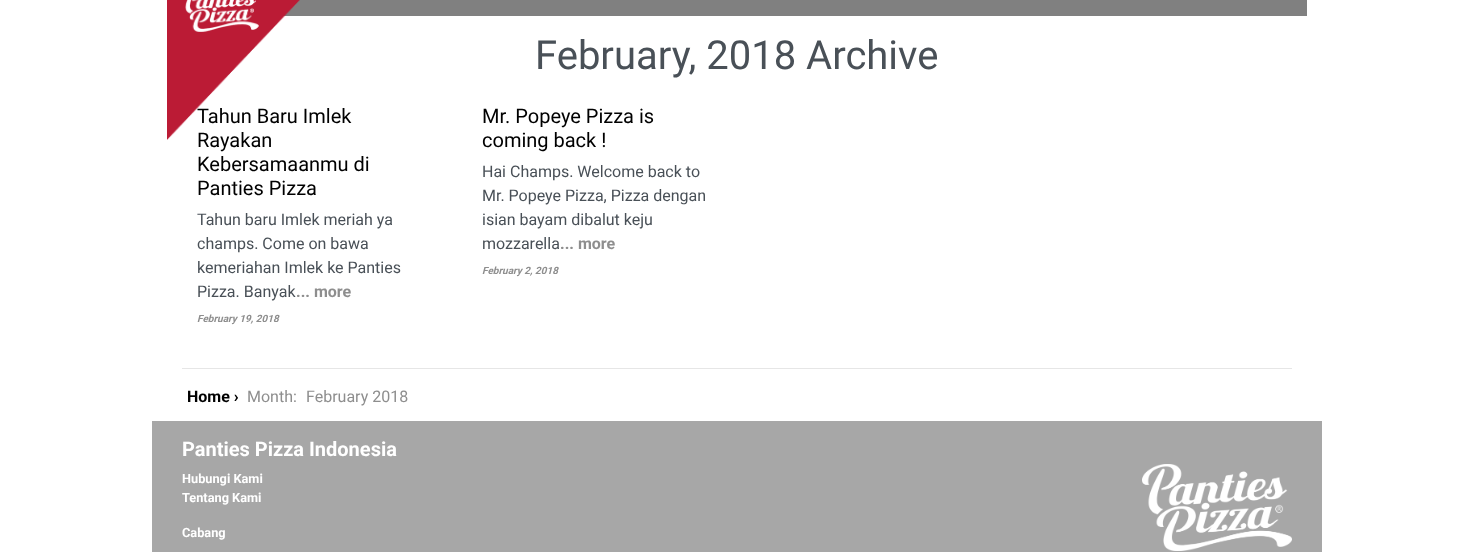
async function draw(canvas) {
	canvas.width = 1474;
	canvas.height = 552;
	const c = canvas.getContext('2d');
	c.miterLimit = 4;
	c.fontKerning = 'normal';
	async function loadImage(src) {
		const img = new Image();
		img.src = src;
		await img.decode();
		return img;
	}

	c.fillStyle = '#fff';
	c.fillRect(0, 0, 1474, 552);
	c.fillStyle = '#808080';
	c.fillRect(283, 0, 1024, 16);
	c.font = '20px Roboto';
	c.fillStyle = '#000';
	c.fillText('Tahun Baru Imlek', 197, 123);
	c.fillText('Rayakan', 197, 147);
	c.drawImage(await loadImage('img1.png'), 167, 0, 133, 140);
	c.font = '40px Roboto';
	c.fillStyle = '#495057';
	c.fillText('February, 2018 Archive', 535, 69);
	c.font = '20px Roboto';
	c.fillStyle = '#000';
	c.fillText('Kebersamaanmu di', 197, 171);
	c.fillText('Panties Pizza', 197, 195);
	c.font = '16px Roboto';
	c.fillStyle = '#495057';
	for (const [text, x, y] of [
		['Tahun baru Imlek meriah ya', 197, 225],
		['champs. Come on bawa', 197, 249],
		['kemeriahan Imlek ke Panties', 197, 273],
		['Pizza. Banyak', 197, 297],
	]) {
		c.fillText(text, x, y);
	}
	c.font = 'bold 16px Roboto';
	c.fillStyle = '#8e8e8e';
	c.fillText('... more', 296, 297);
	c.font = 'italic bold 10px Roboto';
	c.fillText('February 19, 2018', 197, 322);
	c.font = '20px Roboto';
	c.fillStyle = '#000';
	c.fillText('Mr. Popeye Pizza is', 482, 123);
	c.fillText('coming back !', 482, 147);
	c.font = '16px Roboto';
	c.fillStyle = '#495057';
	for (const [text, x, y] of [
		['Hai Champs. Welcome back to', 482, 177],
		['Mr. Popeye Pizza, Pizza dengan', 482, 201],
		['isian bayam dibalut keju', 482, 225],
		['mozzarella', 482, 249],
	]) {
		c.fillText(text, x, y);
	}
	c.font = 'bold 16px Roboto';
	c.fillStyle = '#8e8e8e';
	c.fillText('... more', 560, 249);
	c.font = 'italic bold 10px Roboto';
	c.fillText('February 2, 2018', 482, 274);
	c.fillStyle = '#e6e6e6';
	c.fillRect(182, 368, 1110, 1);
	c.font = 'bold 16px Roboto';
	c.fillStyle = '#000';
	c.fillText('Home ›', 187, 402);
	c.font = '16px Roboto';
	c.fillStyle = '#8e8e8e';
	c.fillText('Month:', 247, 402);
	c.fillText('February 2018', 306, 402);
	c.fillStyle = '#a7a7a7';
	c.fillRect(152, 421, 1170, 131);
	c.font = 'bold 20px Roboto';
	c.fillStyle = '#fff';
	c.fillText('Panties Pizza Indonesia', 182, 456);
	c.font = 'bold 12.75px Roboto';
	for (const [text, x, y] of [
		['Hubungi Kami', 182, 483],
		['Tentang Kami', 182, 502],
		['Cabang', 182, 537],
	]) {
		c.fillText(text, x, y);
	}
	c.drawImage(await loadImage('img2.png'), 1142, 464, 150, 87);
}

draw(document.querySelector('canvas'));
